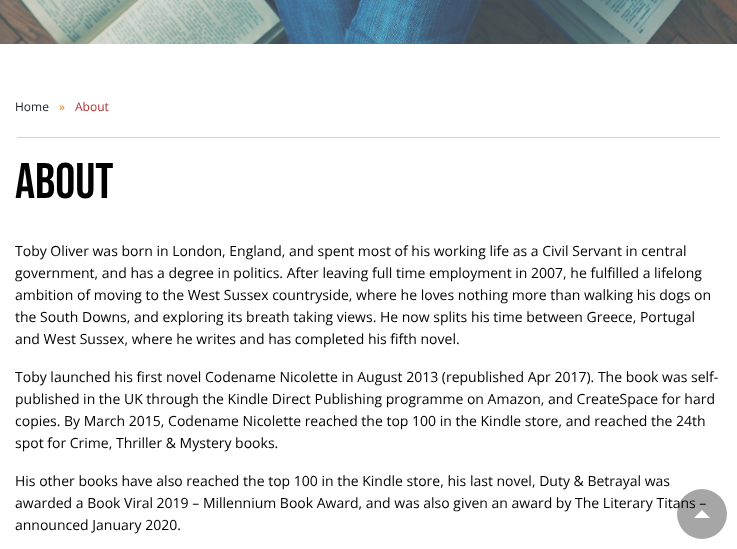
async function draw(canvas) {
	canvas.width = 737;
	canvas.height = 549;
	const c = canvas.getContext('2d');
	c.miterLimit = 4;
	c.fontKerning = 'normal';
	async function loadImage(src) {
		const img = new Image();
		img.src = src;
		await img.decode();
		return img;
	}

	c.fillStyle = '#fff';
	c.fillRect(0, 0, 737, 549);
	c.drawImage(await loadImage('img1.png'), 0, 0, 737, 44);
	c.fillStyle = '#d3d3d3';
	c.fillRect(17, 137, 703, 1);
	c.font = '12px Open Sans';
	c.fillStyle = '#212529';
	c.fillText('Home', 15, 111);
	c.fillStyle = '#f37823';
	c.fillText('»', 59, 111);
	c.fillStyle = '#ae3030';
	c.fillText('About', 75, 111);
	c.font = '50px Bebas Neue';
	c.fillStyle = '#000';
	c.fillText('About', 15, 198);
	c.font = '14px Open Sans';
	for (const [text, x, y] of [
		['Toby Oliver was born in London, England, and spent most of his working life as a Civil Servant in central', 15, 256],
		['government, and has a degree in politics. After leaving full time employment in 2007, he fulfilled a lifelong', 15, 278],
		['ambition of moving to the West Sussex countryside, where he loves nothing more than walking his dogs on', 15, 300],
		['the South Downs, and exploring its breath taking views. He now splits his time between Greece, Portugal', 15, 322],
		['and West Sussex, where he writes and has completed his fifth novel.', 15, 344],
		['Toby launched his first novel Codename Nicolette in August 2013 (republished Apr 2017). The book was self-', 15, 382],
		['published in the UK through the Kindle Direct Publishing programme on Amazon, and CreateSpace for hard', 15, 404],
		['copies. By March 2015, Codename Nicolette reached the top 100 in the Kindle store, and reached the 24th', 15, 426],
		['spot for Crime, Thriller & Mystery books.', 15, 448],
		['His other books have also reached the top 100 in the Kindle store, his last novel, Duty & Betrayal was', 15, 486],
		['awarded a Book Viral 2019 – Millennium Book Award, and was also given an award by The Literary Titans –', 15, 508],
		['announced January 2020.', 15, 530],
	]) {
		c.fillText(text, x, y);
	}
	c.fillStyle = '#00000059';
	c.beginPath();
	c.arc(702, 514, 25, 0, 2 * Math.PI);
	c.fill();
	c.fillStyle = '#fff';
	c.beginPath();
	c.moveTo(710, 518);
	c.lineTo(694, 518);
	c.lineTo(702, 510);
	c.closePath();
	c.fill();
}

draw(document.querySelector('canvas'));
